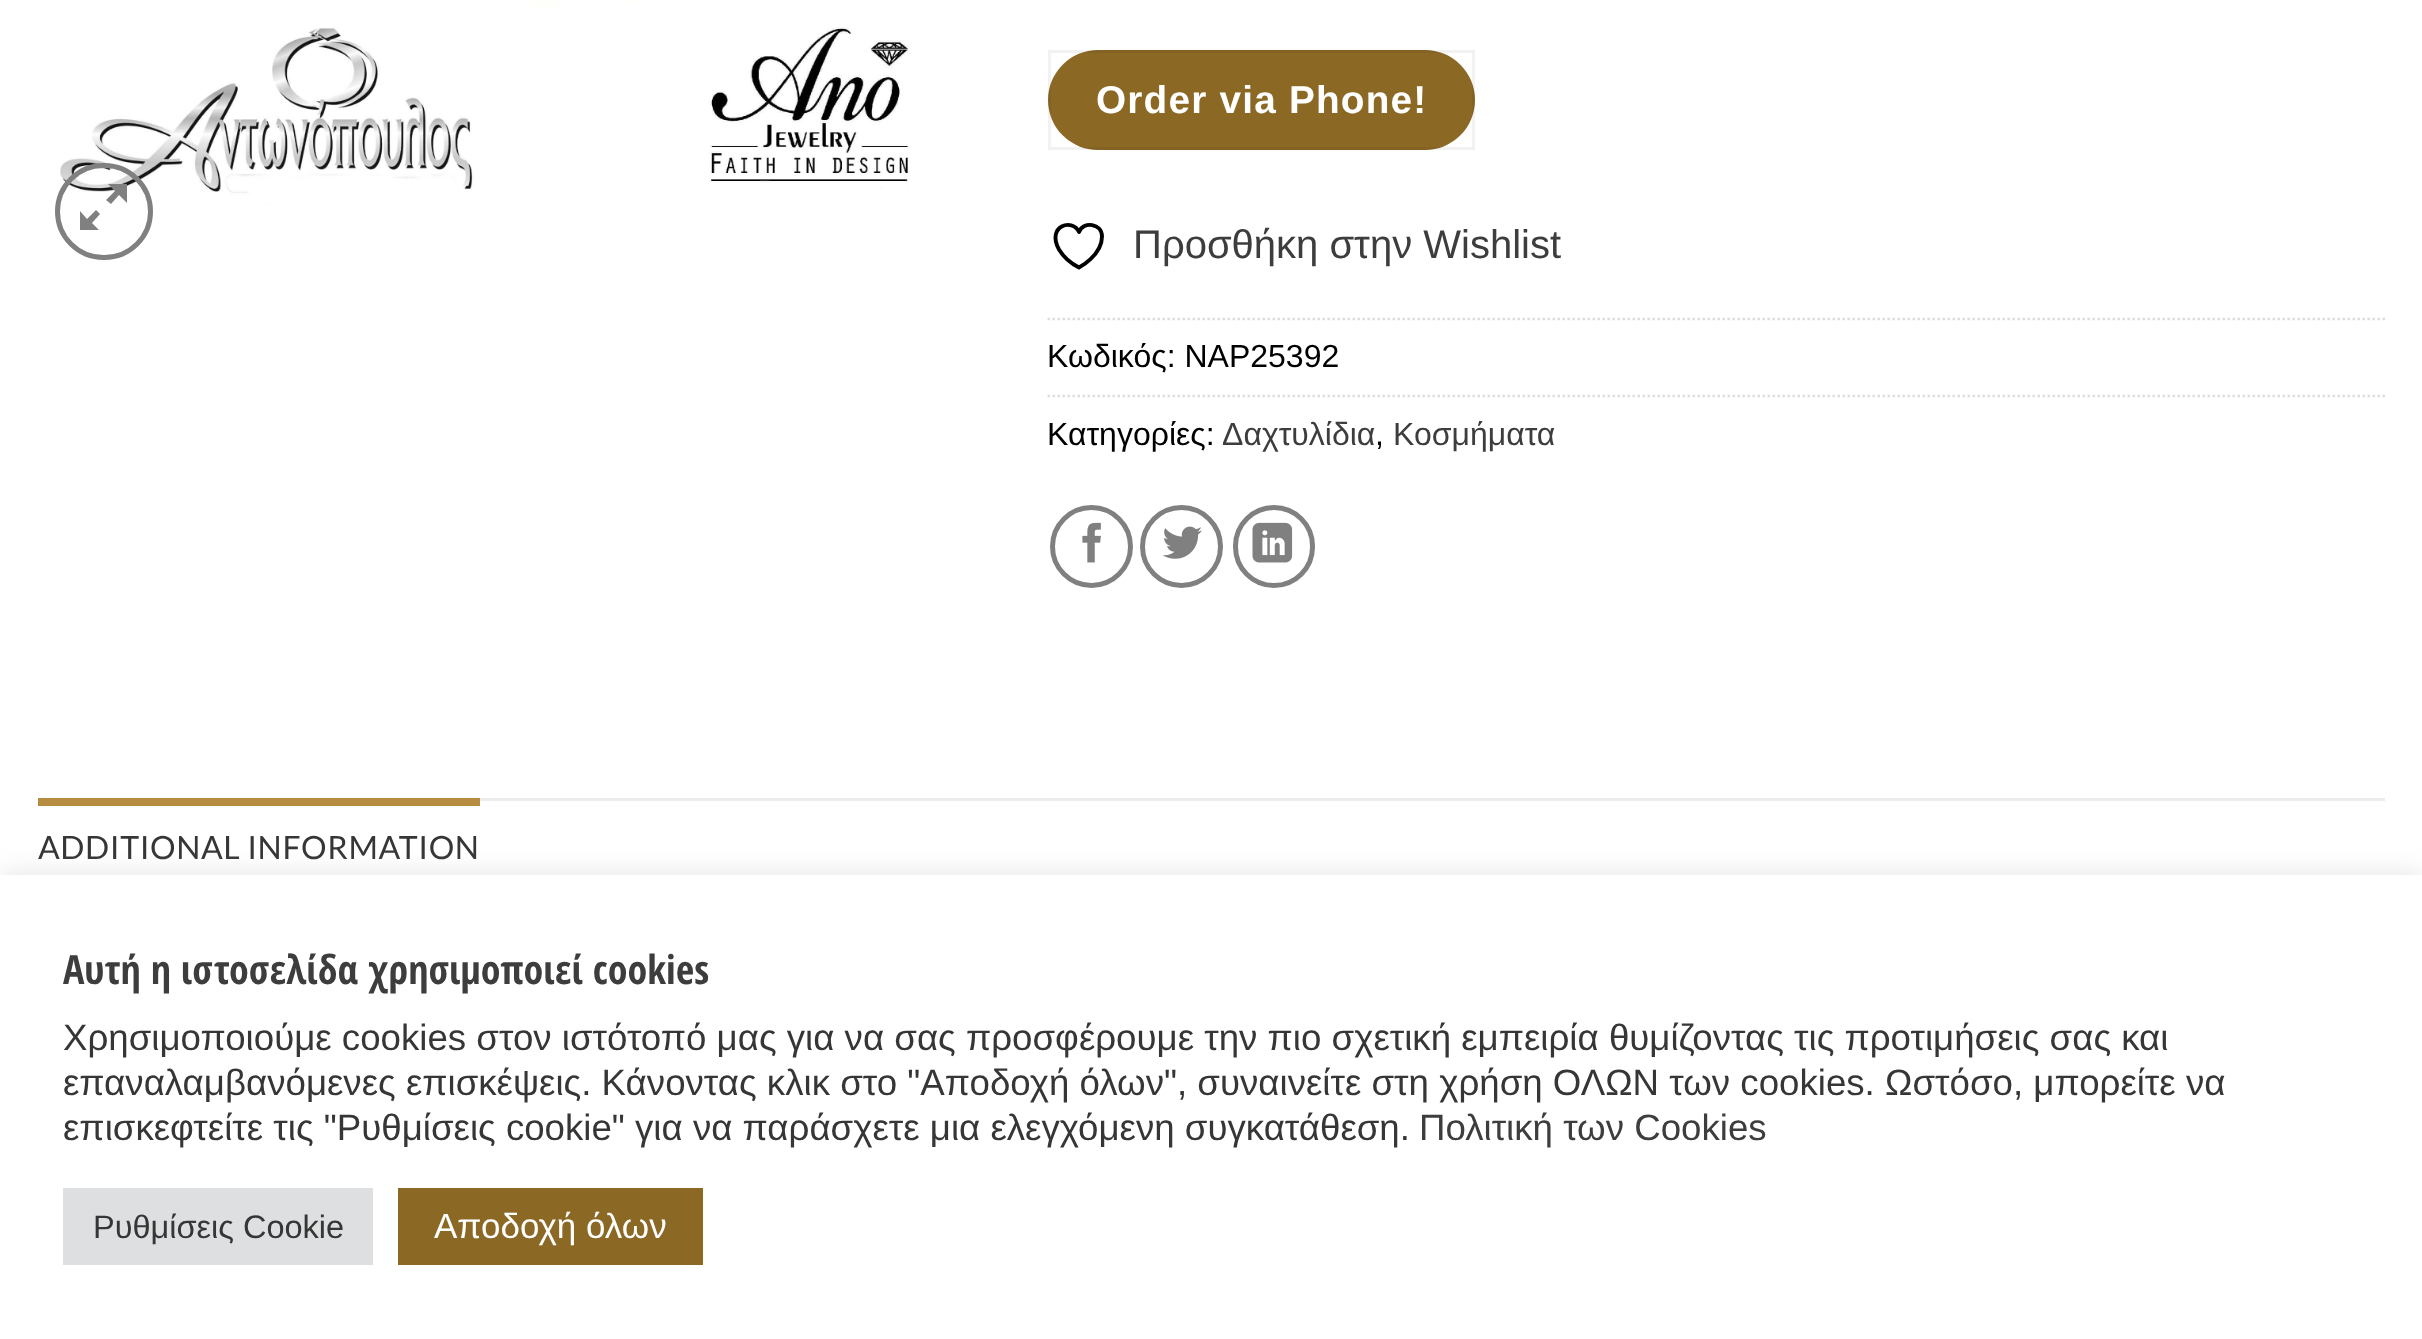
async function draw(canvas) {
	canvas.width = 2422;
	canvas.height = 1339;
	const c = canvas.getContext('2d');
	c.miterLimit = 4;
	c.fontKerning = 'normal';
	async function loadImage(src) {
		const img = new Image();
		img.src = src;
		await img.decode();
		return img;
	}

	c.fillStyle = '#fff';
	c.fillRect(0, 0, 2422, 1339);
	c.drawImage(await loadImage('img1.png'), 60, 0, 849, 205);
	c.beginPath();
	c.roundRect(57.5, 165.5, 93, 92, 46);
	c.strokeStyle = '#808080';
	c.lineWidth = 5;
	c.stroke();
	c.fillStyle = '#808080';
	c.beginPath();
	c.moveTo(127, 184);
	c.lineTo(127, 203);
	c.lineTo(119, 195);
	c.lineTo(111, 204);
	c.lineTo(106, 200);
	c.lineTo(115, 191);
	c.lineTo(108, 184);
	c.closePath();
	c.moveTo(100, 214);
	c.lineTo(92, 223);
	c.lineTo(99, 230);
	c.lineTo(80, 230);
	c.lineTo(80, 211);
	c.lineTo(87, 219);
	c.lineTo(96, 210);
	c.closePath();
	c.fill();
	c.fillStyle = '#8c6825';
	c.beginPath();
	c.roundRect(1048, 50, 427, 100, 50);
	c.fill();
	c.strokeStyle = '#0000000d';
	c.lineWidth = 3;
	c.strokeRect(1049.5, 51.5, 424, 97);
	c.letterSpacing = '1.2px';
	c.font = 'bold 38.75px Liberation Sans';
	c.fillStyle = '#fff';
	c.fillText('Order via Phone!', 1096, 113);
	c.letterSpacing = '0px';
	c.font = '40px Liberation Sans';
	c.fillStyle = '#3d3d3d';
	c.fillText('Προσθήκη στην Wishlist', 1133, 258);
	c.beginPath();
	c.moveTo(1102, 236.5);
	c.bezierCurveTo(1102, 223.5, 1083.5, 220.5, 1079, 232);
	c.bezierCurveTo(1072.5, 217.5, 1046, 226, 1059, 249.5);
	c.bezierCurveTo(1063.5, 257, 1071, 263.5, 1079, 267.5);
	c.bezierCurveTo(1079, 267.5, 1102, 255.5, 1102, 236.5);
	c.closePath();
	c.strokeStyle = '#000';
	c.lineWidth = 3.9;
	c.lineCap = 'round';
	c.lineJoin = 'round';
	c.stroke();
	c.beginPath();
	c.moveTo(1047.5, 319);
	c.lineTo(2385, 319);
	c.strokeStyle = '#ddd';
	c.lineWidth = 2.5;
	c.lineCap = 'butt';
	c.lineJoin = 'miter';
	c.setLineDash([2.5, 2.5]);
	c.stroke();
	c.font = '32px Liberation Sans';
	c.fillStyle = '#000';
	c.fillText('Κωδικός: NAP25392', 1047, 367);
	c.beginPath();
	c.moveTo(1047.5, 396);
	c.lineTo(2385, 396);
	c.stroke();
	c.fillText('Κατηγορίες:', 1047, 445);
	c.fillStyle = '#3d3d3d';
	c.fillText('Δαχτυλίδια', 1222, 445);
	c.fillStyle = '#000';
	c.fillText(',', 1375, 445);
	c.fillStyle = '#3d3d3d';
	c.fillText('Κοσμήματα', 1393, 445);
	c.beginPath();
	c.arc(1091.5, 546.5, 39, 0, 2 * Math.PI);
	c.strokeStyle = '#808080';
	c.lineWidth = 5;
	c.setLineDash([]);
	c.stroke();
	c.drawImage(await loadImage('img2.png'), 1082, 522, 19, 41);
	c.beginPath();
	c.arc(1181.5, 546.5, 39, 0, 2 * Math.PI);
	c.stroke();
	c.drawImage(await loadImage('img3.png'), 1162, 526, 40, 33);
	c.beginPath();
	c.roundRect(1235.5, 507.5, 77, 78, 38.5);
	c.stroke();
	c.drawImage(await loadImage('img4.png'), 1252, 522, 41, 41);
	c.fillStyle = '#ececec';
	c.fillRect(480, 798, 1905, 3);
	c.fillStyle = '#b68d40';
	c.fillRect(38, 798, 442, 8);
	c.letterSpacing = '0.6px';
	c.font = '32px Lato';
	c.fillStyle = '#363636';
	c.fillText('ADDITIONAL INFORMATION', 38, 859);
	c.fillStyle = '#acabab4d';
	c.filter = 'blur(12.5px)';
	c.beginPath();
	c.rect(0, 873, 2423, 465);
	c.fill();
	c.filter = 'none';
	c.fillStyle = '#fff';
	c.fillRect(0, 875, 2422, 464);
	c.letterSpacing = '0px';
	c.font = 'bold 40px Open Sans Condensed';
	c.fillStyle = '#3d3d3d';
	c.fillText('Αυτή η ιστοσελίδα χρησιμοποιεί cookies', 63, 984);
	c.font = '36.67px Liberation Sans';
	c.fillStyle = '#363636';
	for (const [text, x, y] of [
		['Χρησιμοποιούμε cookies στον ιστότοπό μας για να σας προσφέρουμε την πιο σχετική εμπειρία θυμίζοντας τις προτιμήσεις σας και', 63, 1050],
		['επαναλαμβανόμενες επισκέψεις. Κάνοντας κλικ στο "Αποδοχή όλων", συναινείτε στη χρήση ΟΛΩΝ των cookies. Ωστόσο, μπορείτε να', 63, 1095],
		['επισκεφτείτε τις "Ρυθμίσεις cookie" για να παράσχετε μια ελεγχόμενη συγκατάθεση.', 63, 1140],
	]) {
		c.fillText(text, x, y);
	}
	c.fillStyle = '#3d3d3d';
	c.fillText('Πολιτική των Cookies', 1419, 1140);
	c.fillStyle = '#dedfe0';
	c.fillRect(63, 1188, 310, 77);
	c.font = '32.5px Liberation Sans';
	c.fillStyle = '#363636';
	c.fillText('Ρυθμίσεις Cookie', 93, 1238);
	c.fillStyle = '#8c6825';
	c.fillRect(398, 1188, 305, 77);
	c.font = '35px Liberation Sans';
	c.fillStyle = '#fff';
	c.fillText('Αποδοχή όλων', 434, 1238);
}

draw(document.querySelector('canvas'));
